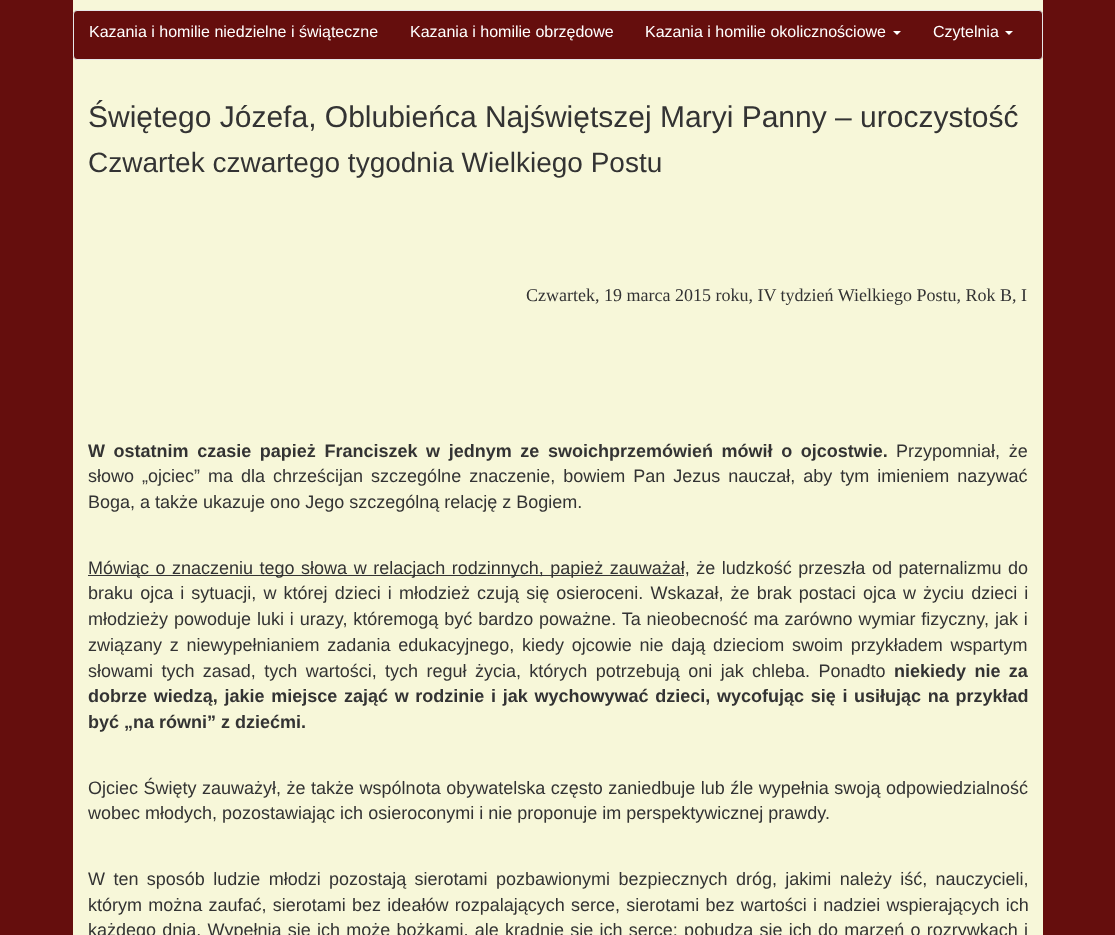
async function draw(canvas) {
	canvas.width = 1115;
	canvas.height = 935;
	const c = canvas.getContext('2d');
	c.miterLimit = 4;
	c.fontKerning = 'normal';

	c.fillStyle = '#650e0d';
	c.fillRect(0, 0, 1115, 935);
	c.fillStyle = '#f7f7d9';
	c.fillRect(73, 0, 970, 935);
	c.fillStyle = '#650e0d';
	c.beginPath();
	c.roundRect(73.5, 10.5, 969, 49, 3.5);
	c.fill();
	c.strokeStyle = '#e7e7e7';
	c.stroke();
	c.font = '16px Liberation Sans';
	c.fillStyle = '#fff';
	for (const [text, x, y] of [
		['Kazania i homilie niedzielne i świąteczne', 89, 37],
		['Kazania i homilie obrzędowe', 410, 37],
		['Kazania i homilie okolicznościowe', 645, 37],
	]) {
		c.fillText(text, x, y);
	}
	c.beginPath();
	c.moveTo(893, 31);
	c.lineTo(901, 31);
	c.lineTo(897, 35);
	c.closePath();
	c.fill();
	c.fillText('Czytelnia', 933, 37);
	c.beginPath();
	c.moveTo(1005, 31);
	c.lineTo(1013, 31);
	c.lineTo(1009, 35);
	c.closePath();
	c.fill();
	c.font = '30px Liberation Sans';
	c.fillStyle = '#333';
	c.fillText('Świętego Józefa, Oblubieńca Najświętszej Maryi Panny – uroczystość', 88, 127);
	c.font = '28px Liberation Sans';
	c.fillText('Czwartek czwartego tygodnia Wielkiego Postu', 88, 172);
	c.font = '18px Liberation Serif';
	c.fillText('Czwartek, 19 marca 2015 roku, IV tydzień Wielkiego Postu, Rok B, I', 526, 301);
	c.wordSpacing = '3.6px';
	c.font = 'bold 18px Liberation Sans';
	c.fillText('W ostatnim czasie papież Franciszek w jednym ze swoichprzemówień mówił o ojcostwie.', 88, 457);
	c.font = '18px Liberation Sans';
	c.fillText('Przypomniał, że', 896, 457);
	c.wordSpacing = '3px';
	c.fillText('słowo „ojciec” ma dla chrześcijan szczególne znaczenie, bowiem Pan Jezus nauczał, aby tym imieniem nazywać', 88, 482);
	c.wordSpacing = '0px';
	c.fillText('Boga, a także ukazuje ono Jego szczególną relację z Bogiem.', 88, 508);
	c.fillRect(88, 575, 596, 1);
	c.wordSpacing = '1.5px';
	c.fillText('Mówiąc o znaczeniu tego słowa w relacjach rodzinnych, papież zauważał, że ludzkość przeszła od paternalizmu do', 88, 574);
	c.wordSpacing = '2.1px';
	c.fillText('braku ojca i sytuacji, w której dzieci i młodzież czują się osieroceni. Wskazał, że brak postaci ojca w życiu dzieci i', 88, 599);
	c.wordSpacing = '0.9px';
	c.fillText('młodzieży powoduje luki i urazy, któremogą być bardzo poważne. Ta nieobecność ma zarówno wymiar fizyczny, jak i', 88, 625);
	c.wordSpacing = '2.75px';
	c.fillText('związany z niewypełnianiem zadania edukacyjnego, kiedy ojcowie nie dają dzieciom swoim przykładem wspartym', 88, 651);
	c.wordSpacing = '3.4px';
	c.fillText('słowami tych zasad, tych wartości, tych reguł życia, których potrzebują oni jak chleba. Ponadto', 88, 677);
	c.font = 'bold 18px Liberation Sans';
	c.fillText('niekiedy nie za', 894, 677);
	c.wordSpacing = '1.7px';
	c.fillText('dobrze wiedzą, jakie miejsce zająć w rodzinie i jak wychowywać dzieci, wycofując się i usiłując na przykład', 88, 702);
	c.wordSpacing = '0px';
	c.fillText('być „na równi” z dziećmi.', 88, 728);
	c.wordSpacing = '0.5px';
	c.font = '18px Liberation Sans';
	c.fillText('Ojciec Święty zauważył, że także wspólnota obywatelska często zaniedbuje lub źle wypełnia swoją odpowiedzialność', 88, 794);
	c.wordSpacing = '0px';
	c.fillText('wobec młodych, pozostawiając ich osieroconymi i nie proponuje im perspektywicznej prawdy.', 88, 819);
	c.wordSpacing = '3.4px';
	c.fillText('W ten sposób ludzie młodzi pozostają sierotami pozbawionymi bezpiecznych dróg, jakimi należy iść, nauczycieli,', 88, 885);
	c.wordSpacing = '1.25px';
	c.fillText('którym można zaufać, sierotami bez ideałów rozpalających serce, sierotami bez wartości i nadziei wspierających ich', 88, 911);
	c.fillText('każdego dnia. Wypełnia się ich może bożkami, ale kradnie się ich serce; pobudza się ich do marzeń o rozrywkach i', 88, 936);
}

draw(document.querySelector('canvas'));
